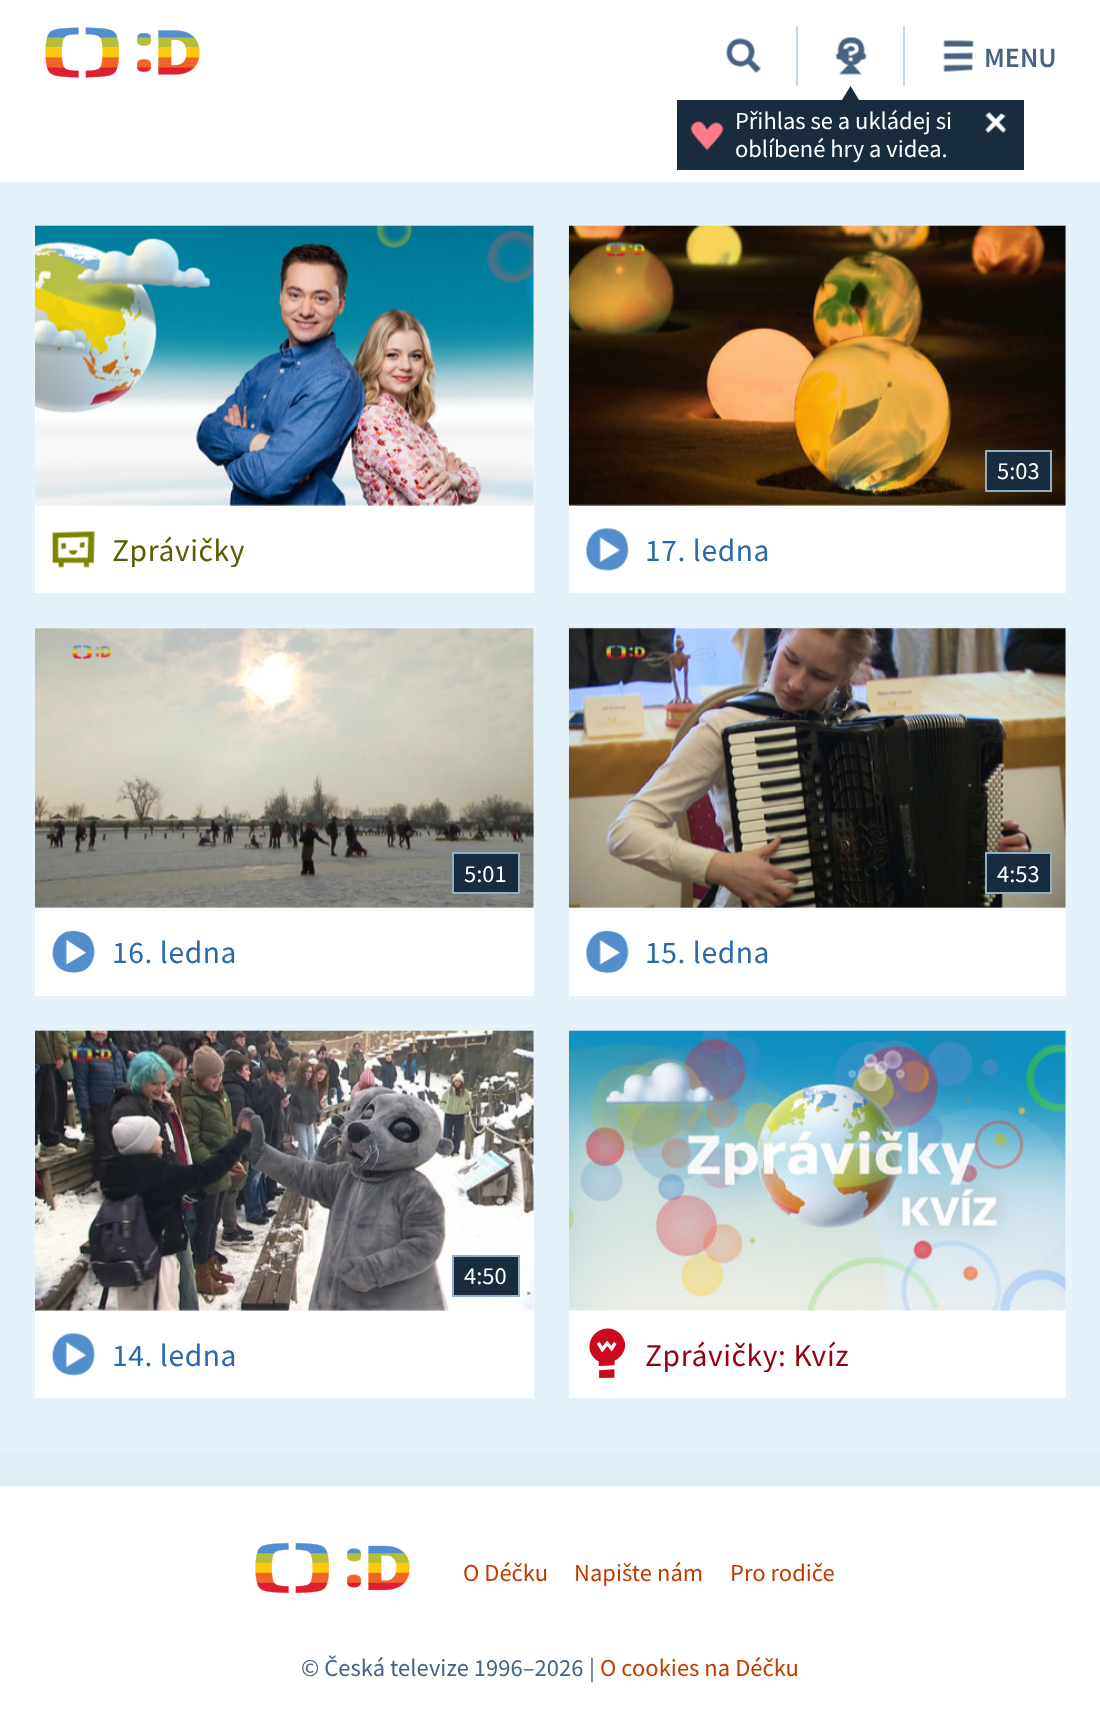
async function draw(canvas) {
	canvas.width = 1100;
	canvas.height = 1711;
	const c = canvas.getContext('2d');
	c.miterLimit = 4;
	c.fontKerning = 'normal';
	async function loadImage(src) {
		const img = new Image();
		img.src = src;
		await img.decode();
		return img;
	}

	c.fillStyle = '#e0ecf5';
	c.fillRect(0, 0, 1100, 1711);
	c.fillStyle = '#fff';
	c.fillRect(0, 0, 1100, 182);
	c.drawImage(await loadImage('img1.png'), 45, 27, 155, 51);
	c.drawImage(await loadImage('img2.png'), 726, 38, 35, 35);
	c.fillStyle = '#c3d7e6';
	c.fillRect(903, 26, 2, 60);
	c.drawImage(await loadImage('img3.png'), 943, 40, 31, 32);
	c.font = '600 28px Source Sans Pro';
	c.fillStyle = '#486380';
	c.fillText('MENU', 984, 67);
	c.fillStyle = '#c3d7e6';
	c.fillRect(796, 26, 2, 60);
	c.drawImage(await loadImage('img4.png'), 835, 37, 32, 38);
	c.fillStyle = '#192c3d';
	c.fillRect(677, 100, 347, 70);
	c.beginPath();
	c.moveTo(859, 100);
	c.lineTo(842, 100);
	c.lineTo(850.5, 86);
	c.closePath();
	c.fill();
	c.drawImage(await loadImage('img5.png'), 690, 121, 34, 30);
	c.font = '24.5px Source Sans Pro';
	c.fillStyle = '#fff';
	c.fillText('Přihlas se a ukládej si', 735, 129);
	c.fillText('oblíbené hry a videa.', 735, 157);
	c.drawImage(await loadImage('img6.png'), 985, 112, 22, 21);
	c.fillStyle = '#e6f2fa';
	c.fillRect(0, 182, 1100, 1269);
	c.fillStyle = '#fff';
	c.fillRect(35, 226, 499, 367);
	c.drawImage(await loadImage('img7.png'), 35, 225, 499, 281);
	c.drawImage(await loadImage('img8.png'), 52, 531, 43, 37);
	c.save();
	c.beginPath();
	c.rect(112, 530, 133, 37);
	c.clip();
	c.letterSpacing = '0.6px';
	c.font = '31.5px Source Sans Pro';
	c.fillStyle = '#575d00';
	c.fillText('Zprávičky', 112, 561);
	c.restore();
	c.fillRect(569, 226, 497, 367);
	c.drawImage(await loadImage('img9.png'), 568, 225, 498, 281);
	c.fillStyle = '#192c3d';
	c.beginPath();
	c.rect(986, 451, 65, 40);
	c.fill();
	c.strokeStyle = '#91b0c4';
	c.lineWidth = 2;
	c.stroke();
	c.fillStyle = '#fff';
	c.fillText('5:03', 997, 479);
	c.drawImage(await loadImage('img10.png'), 586, 528, 43, 43);
	c.letterSpacing = '0.6px';
	c.font = '31.5px Source Sans Pro';
	c.fillStyle = '#2969ab';
	c.fillText('17. ledna', 645, 561);
	c.fillStyle = '#fff';
	c.fillRect(35, 628, 499, 368);
	c.drawImage(await loadImage('img11.png'), 35, 628, 499, 280);
	c.fillStyle = '#192c3d';
	c.beginPath();
	c.rect(453, 853, 66, 40);
	c.fill();
	c.stroke();
	c.letterSpacing = '0px';
	c.font = '24.5px Source Sans Pro';
	c.fillStyle = '#fff';
	c.fillText('5:01', 464, 882);
	c.drawImage(await loadImage('img12.png'), 51, 931, 44, 42);
	c.letterSpacing = '0.6px';
	c.font = '31.5px Source Sans Pro';
	c.fillStyle = '#2969ab';
	c.fillText('16. ledna', 112, 963);
	c.fillStyle = '#fff';
	c.fillRect(569, 628, 497, 368);
	c.drawImage(await loadImage('img13.png'), 568, 627, 498, 281);
	c.fillStyle = '#192c3d';
	c.beginPath();
	c.rect(986, 853, 65, 40);
	c.fill();
	c.stroke();
	c.letterSpacing = '0px';
	c.font = '24.5px Source Sans Pro';
	c.fillStyle = '#fff';
	c.fillText('4:53', 997, 882);
	c.drawImage(await loadImage('img14.png'), 586, 930, 43, 43);
	c.letterSpacing = '0.6px';
	c.font = '31.5px Source Sans Pro';
	c.fillStyle = '#2969ab';
	c.fillText('15. ledna', 645, 963);
	c.fillStyle = '#fff';
	c.fillRect(35, 1031, 499, 367);
	c.drawImage(await loadImage('img15.png'), 35, 1030, 499, 281);
	c.fillStyle = '#192c3d';
	c.beginPath();
	c.rect(453, 1256, 66, 40);
	c.fill();
	c.stroke();
	c.letterSpacing = '0px';
	c.font = '24.5px Source Sans Pro';
	c.fillStyle = '#fff';
	c.fillText('4:50', 464, 1284);
	c.drawImage(await loadImage('img16.png'), 52, 1333, 43, 43);
	c.letterSpacing = '0.6px';
	c.font = '31.5px Source Sans Pro';
	c.fillStyle = '#2969ab';
	c.fillText('14. ledna', 112, 1366);
	c.fillStyle = '#fff';
	c.fillRect(569, 1031, 497, 367);
	c.drawImage(await loadImage('img17.png'), 568, 1030, 498, 281);
	c.drawImage(await loadImage('img18.png'), 589, 1328, 37, 50);
	c.save();
	c.beginPath();
	c.rect(646, 1335, 203, 37);
	c.clip();
	c.fillStyle = '#93000f';
	c.fillText('Zprávičky: Kvíz', 645, 1366);
	c.restore();
	c.fillRect(0, 1486, 1100, 225);
	c.drawImage(await loadImage('img19.png'), 255, 1543, 155, 50);
	c.letterSpacing = '0.05px';
	c.font = '24.5px Source Sans Pro';
	c.fillStyle = '#bd3d00';
	for (const [text, x, y] of [
		['O Déčku', 463, 1581],
		['Napište nám', 574, 1581],
		['Pro rodiče', 730, 1581],
	]) {
		c.fillText(text, x, y);
	}
	c.fillStyle = '#486380';
	c.fillText('© Česká televize 1996–2026', 301, 1676);
	c.fillText('|', 589, 1676);
	c.fillStyle = '#bd3d00';
	c.fillText('O cookies na Déčku', 600, 1676);
}

draw(document.querySelector('canvas'));
